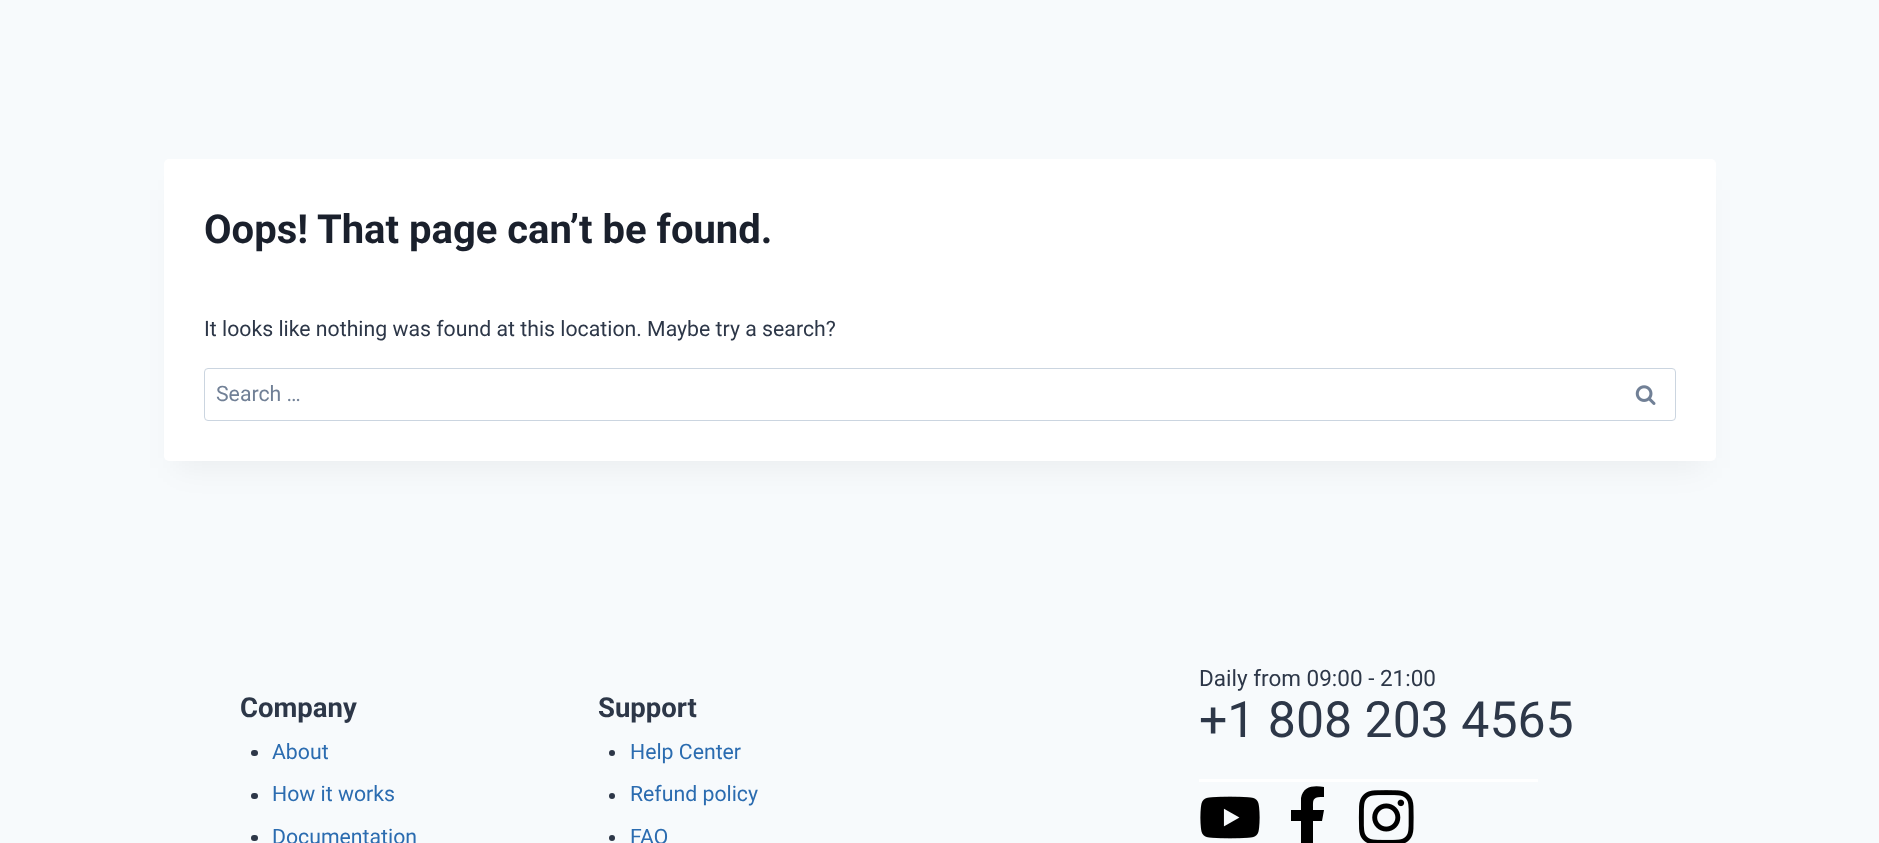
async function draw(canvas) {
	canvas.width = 1879;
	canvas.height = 843;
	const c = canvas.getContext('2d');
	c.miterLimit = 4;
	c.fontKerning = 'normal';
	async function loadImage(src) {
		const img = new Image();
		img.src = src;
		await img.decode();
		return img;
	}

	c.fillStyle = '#f7fafc';
	c.fillRect(0, 0, 1879, 843);
	c.fillStyle = '#0000000d';
	c.filter = 'blur(15.5px)';
	c.beginPath();
	c.rect(176, 190, 1528, 278);
	c.fill();
	c.filter = 'none';
	c.fillStyle = '#fff';
	c.beginPath();
	c.roundRect(164, 159, 1552, 302, 5);
	c.fill();
	c.font = 'bold 40px Roboto';
	c.fillStyle = '#1a202c';
	c.fillText('Oops! That page can’t be found.', 204, 243);
	c.font = '21.25px Roboto';
	c.fillStyle = '#2d3748';
	c.fillText('It looks like nothing was found at this location. Maybe try a search?', 204, 336);
	c.beginPath();
	c.roundRect(204.5, 368.5, 1471, 52, 3.5);
	c.strokeStyle = '#cbd5e0';
	c.stroke();
	c.fillStyle = '#718096';
	c.fillText('Search …', 216, 401);
	c.drawImage(await loadImage('img1.png'), 1635, 385, 21, 20);
	c.font = 'bold 27.5px Roboto';
	c.fillStyle = '#2d3748';
	c.fillText('Company', 240, 717);
	c.beginPath();
	c.roundRect(251, 750, 7, 6, 3);
	c.fill();
	c.font = '21.25px Roboto';
	c.fillStyle = '#2b6cb0';
	c.fillText('About', 272, 759);
	c.fillStyle = '#2d3748';
	c.beginPath();
	c.roundRect(251, 793, 7, 6, 3);
	c.fill();
	c.fillStyle = '#2b6cb0';
	c.fillText('How it works', 272, 801);
	c.fillStyle = '#2d3748';
	c.beginPath();
	c.roundRect(251, 835, 7, 6, 3);
	c.fill();
	c.fillStyle = '#2b6cb0';
	c.fillText('Documentation', 272, 844);
	c.font = 'bold 27.5px Roboto';
	c.fillStyle = '#2d3748';
	c.fillText('Support', 598, 717);
	c.beginPath();
	c.arc(612, 753, 3, 0, 2 * Math.PI);
	c.fill();
	c.font = '21.25px Roboto';
	c.fillStyle = '#2b6cb0';
	c.fillText('Help Center', 630, 759);
	c.fillStyle = '#2d3748';
	c.beginPath();
	c.arc(612, 796, 3, 0, 2 * Math.PI);
	c.fill();
	c.fillStyle = '#2b6cb0';
	c.fillText('Refund policy', 630, 801);
	c.fillStyle = '#2d3748';
	c.beginPath();
	c.arc(612, 838, 3, 0, 2 * Math.PI);
	c.fill();
	c.fillStyle = '#2b6cb0';
	c.fillText('FAQ', 630, 844);
	c.font = '22.5px Roboto';
	c.fillStyle = '#2d3748';
	c.fillText('Daily from 09:00 - 21:00', 1199, 686);
	c.font = '50px Roboto';
	c.fillText('+1 808 203 4565', 1199, 737);
	c.fillStyle = '#fff';
	c.fillRect(1199, 779, 339, 3);
	c.drawImage(await loadImage('img2.png'), 1200, 796, 60, 43);
	c.fillStyle = '#000';
	c.beginPath();
	c.moveTo(1322, 821);
	c.lineTo(1324, 810);
	c.lineTo(1313, 810);
	c.bezierCurveTo(1313, 799, 1312, 797, 1324, 797);
	c.lineTo(1324, 787);
	c.bezierCurveTo(1314, 785, 1303, 786, 1301, 798);
	c.lineTo(1301, 810);
	c.lineTo(1291, 810);
	c.lineTo(1291, 821);
	c.lineTo(1301, 821);
	c.lineTo(1301, 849);
	c.lineTo(1313, 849);
	c.lineTo(1313, 821);
	c.closePath();
	c.fill();
	c.drawImage(await loadImage('img3.png'), 1358, 790, 56, 53);
}

draw(document.querySelector('canvas'));
